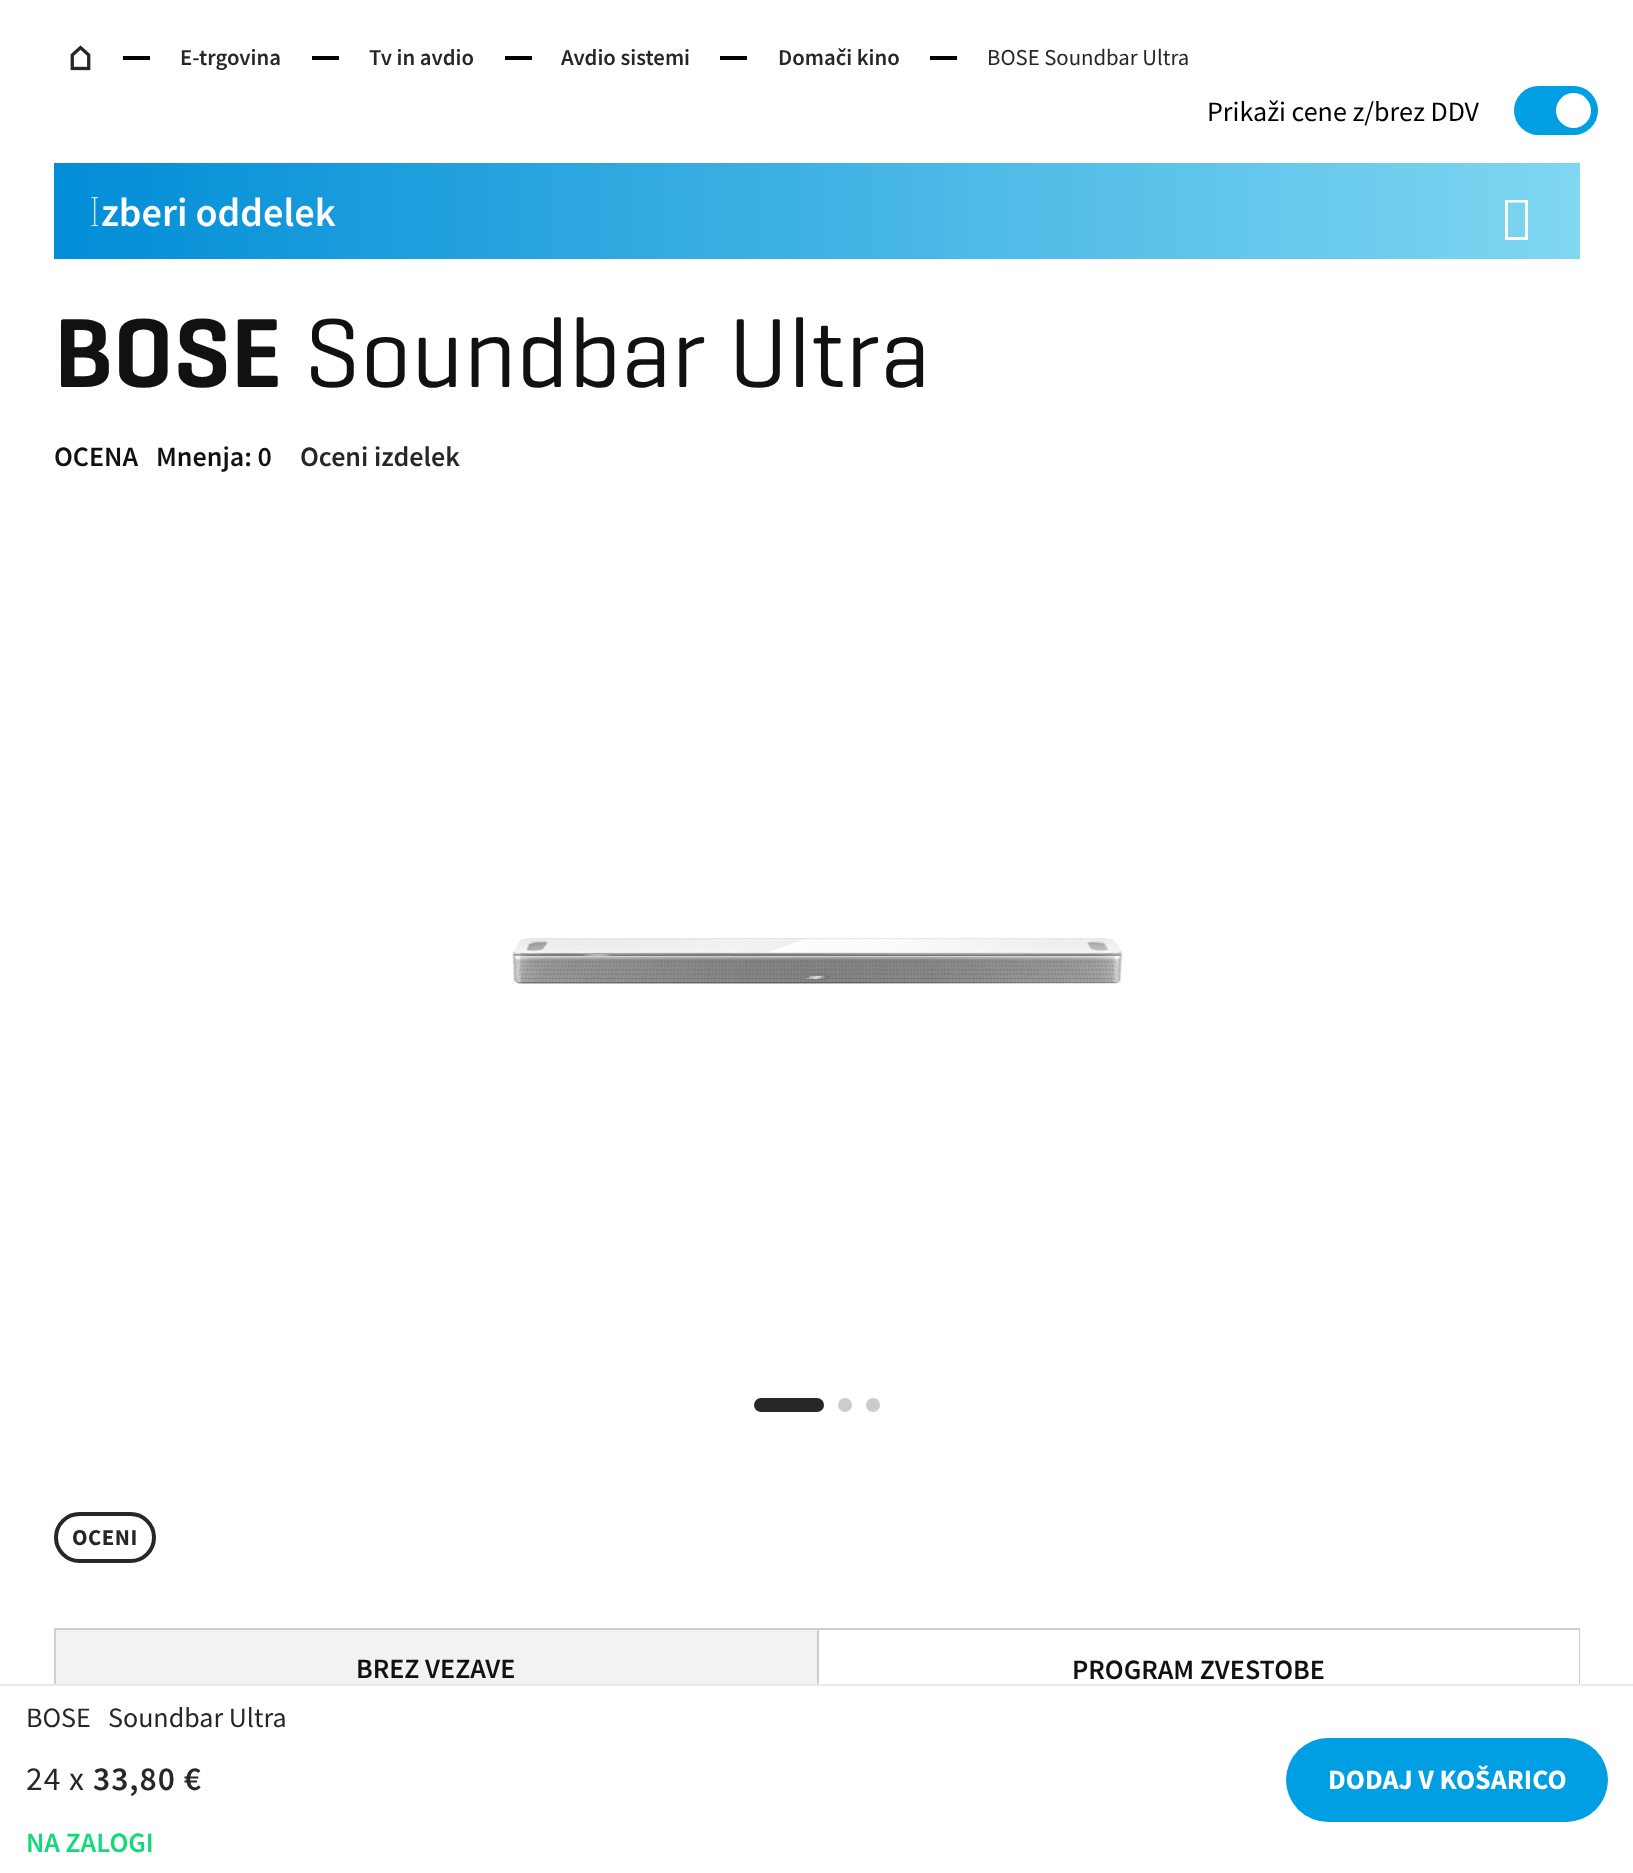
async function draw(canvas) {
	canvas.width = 1633;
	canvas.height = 1873;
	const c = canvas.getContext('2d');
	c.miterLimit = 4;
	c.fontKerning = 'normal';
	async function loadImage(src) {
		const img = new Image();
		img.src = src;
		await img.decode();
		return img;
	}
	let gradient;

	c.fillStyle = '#fff';
	c.fillRect(0, 0, 1633, 1873);
	c.drawImage(await loadImage('img1.png'), 70, 45, 21, 26);
	c.fillStyle = '#000';
	c.fillRect(123, 56, 27, 4);
	c.font = '600 22.75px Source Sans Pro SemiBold';
	c.fillStyle = '#252729';
	c.fillText('E-trgovina', 180, 65);
	c.fillStyle = '#000';
	c.fillRect(312, 56, 27, 4);
	c.fillStyle = '#252729';
	c.fillText('Tv in avdio', 369, 65);
	c.fillStyle = '#000';
	c.fillRect(505, 56, 27, 4);
	c.fillStyle = '#252729';
	c.fillText('Avdio sistemi', 561, 65);
	c.fillStyle = '#000';
	c.fillRect(720, 56, 27, 4);
	c.fillStyle = '#252729';
	c.fillText('Domači kino', 778, 65);
	c.fillStyle = '#000';
	c.fillRect(930, 56, 27, 4);
	c.font = '22.75px Source Sans Pro';
	c.fillStyle = '#252729';
	c.fillText('BOSE Soundbar Ultra', 987, 65);
	c.font = '28px Source Sans Pro';
	c.fillStyle = '#000';
	c.fillText('Prikaži cene z/brez DDV', 1207, 121);
	c.fillStyle = '#009ee3';
	c.beginPath();
	c.roundRect(1514, 86, 84, 49, 24.5);
	c.fill();
	c.fillStyle = '#fff';
	c.beginPath();
	c.arc(1573.5, 110.5, 17.5, 0, 2 * Math.PI);
	c.fill();
	gradient = c.createLinearGradient(54, 211, 1580, 211);
	gradient.addColorStop(0, '#018dd7');
	gradient.addColorStop(1, '#7fd7f1');
	c.fillStyle = gradient;
	c.fillRect(54, 163, 1526, 96);
	c.font = '100 40.25px Noto Sans';
	c.fillStyle = '#fff';
	c.fillText('I', 89, 226);
	c.font = '600 40.25px Source Sans Pro SemiBold';
	c.fillText('zberi oddelek', 101, 226);
	c.beginPath();
	c.moveTo(1505, 240);
	c.lineTo(1505, 200);
	c.lineTo(1528, 200);
	c.lineTo(1528, 240);
	c.closePath();
	c.moveTo(1508, 237);
	c.lineTo(1525, 237);
	c.lineTo(1525, 202.5);
	c.lineTo(1508, 202.5);
	c.closePath();
	c.fill();
	c.font = '600 99.75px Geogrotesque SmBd';
	c.fillStyle = '#111';
	c.fillText('BOSE', 54, 387);
	c.font = '99.75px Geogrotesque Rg';
	c.fillText('Soundbar Ultra', 304, 387);
	c.font = '600 28px Source Sans Pro SemiBold';
	c.fillText('OCENA', 54, 466);
	c.fillText('Mnenja: 0', 156, 466);
	c.fillStyle = '#252729';
	c.fillText('Oceni izdelek', 300, 466);
	c.drawImage(await loadImage('img2.png'), 512, 938, 611, 46);
	c.beginPath();
	c.roundRect(754, 1398, 70, 14, 7);
	c.fill();
	c.fillStyle = '#ccc';
	c.beginPath();
	c.arc(845, 1405, 7, 0, 2 * Math.PI);
	c.fill();
	c.beginPath();
	c.arc(873, 1405, 7, 0, 2 * Math.PI);
	c.fill();
	c.beginPath();
	c.roundRect(56, 1514, 98, 47, 23.5);
	c.strokeStyle = '#252729';
	c.lineWidth = 4;
	c.stroke();
	c.letterSpacing = '0.5px';
	c.font = 'bold 22.75px Source Sans Pro';
	c.fillStyle = '#252729';
	c.fillText('OCENI', 72, 1545);
	for (const [x, y, w, h, color] of [
		[56, 1630, 761, 54, '#f2f2f2'],
		[54, 1628, 763, 2, '#d0d0d0'],
		[54, 1628, 2, 56, '#d0d0d0'],
	]) {
		c.fillStyle = color;
		c.fillRect(x, y, w, h);
	}
	c.letterSpacing = '0px';
	c.font = '600 28px Source Sans Pro SemiBold';
	c.fillStyle = '#111';
	c.fillText('BREZ VEZAVE', 356, 1678);
	for (const [x, y, w, h, color] of [
		[817, 1628, 763, 2, '#ccc'],
		[1579, 1628, 1, 56, '#ccc'],
		[817, 1628, 2, 56, '#ccc'],
	]) {
		c.fillStyle = color;
		c.fillRect(x, y, w, h);
	}
	c.fillStyle = '#111';
	c.fillText('PROGRAM ZVESTOBE', 1072, 1679);
	c.fillStyle = '#e9e9e9';
	c.fillRect(0, 1684, 1633, 2);
	c.font = '28px Source Sans Pro';
	c.fillStyle = '#252729';
	c.fillText('BOSE', 26, 1727);
	c.fillText('Soundbar Ultra', 108, 1727);
	c.letterSpacing = '1px';
	c.font = '33.5px Source Sans Pro';
	c.fillText('24 x', 26, 1790);
	c.font = '600 33.5px Source Sans Pro SemiBold';
	c.fillText('33,80 €', 93, 1790);
	c.letterSpacing = '0px';
	c.font = '600 28px Source Sans Pro SemiBold';
	c.fillStyle = '#14d87a';
	c.fillText('NA ZALOGI', 26, 1852);
	c.fillStyle = '#009ee3';
	c.beginPath();
	c.roundRect(1286, 1738, 322, 84, 42);
	c.fill();
	c.font = 'bold 28px Source Sans Pro';
	c.fillStyle = '#fff';
	c.fillText('DODAJ V KOŠARICO', 1328, 1789);
}

draw(document.querySelector('canvas'));
